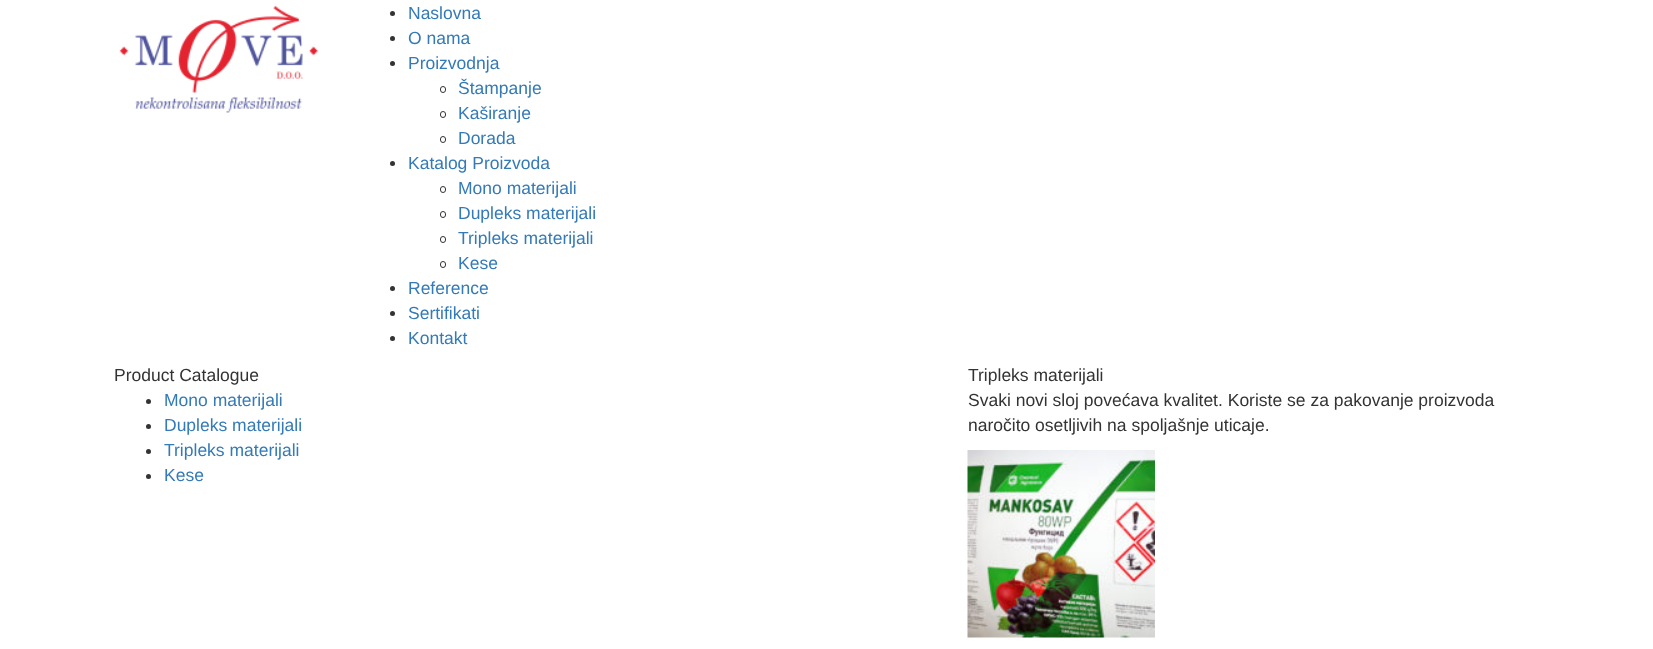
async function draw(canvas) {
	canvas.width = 1653;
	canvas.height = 649;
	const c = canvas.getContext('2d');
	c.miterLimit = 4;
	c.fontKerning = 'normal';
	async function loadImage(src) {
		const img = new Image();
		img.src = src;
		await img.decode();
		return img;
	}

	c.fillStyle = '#fff';
	c.fillRect(0, 0, 1653, 649);
	c.drawImage(await loadImage('img1.png'), 119, 6, 199, 107);
	c.fillStyle = '#333';
	c.beginPath();
	c.arc(392.5, 13.5, 2.5, 0, 2 * Math.PI);
	c.fill();
	c.font = '17.5px Liberation Sans';
	c.fillStyle = '#337ab7';
	c.fillText('Naslovna', 408, 19);
	c.fillStyle = '#333';
	c.beginPath();
	c.arc(392.5, 38.5, 2.5, 0, 2 * Math.PI);
	c.fill();
	c.fillStyle = '#337ab7';
	c.fillText('O nama', 408, 44);
	c.fillStyle = '#333';
	c.beginPath();
	c.arc(392.5, 63.5, 2.5, 0, 2 * Math.PI);
	c.fill();
	c.fillStyle = '#337ab7';
	c.fillText('Proizvodnja', 408, 69);
	c.beginPath();
	c.roundRect(440.5, 86.5, 5, 6, 2.5);
	c.strokeStyle = '#333';
	c.stroke();
	c.fillText('Štampanje', 458, 94);
	c.beginPath();
	c.roundRect(440.5, 111.5, 5, 6, 2.5);
	c.stroke();
	c.fillText('Kaširanje', 458, 119);
	c.beginPath();
	c.roundRect(440.5, 136.5, 5, 6, 2.5);
	c.stroke();
	c.fillText('Dorada', 458, 144);
	c.fillStyle = '#333';
	c.beginPath();
	c.arc(392.5, 163.5, 2.5, 0, 2 * Math.PI);
	c.fill();
	c.fillStyle = '#337ab7';
	c.fillText('Katalog Proizvoda', 408, 169);
	c.beginPath();
	c.roundRect(440.5, 186.5, 5, 6, 2.5);
	c.stroke();
	c.fillText('Mono materijali', 458, 194);
	c.beginPath();
	c.roundRect(440.5, 211.5, 5, 6, 2.5);
	c.stroke();
	c.fillText('Dupleks materijali', 458, 219);
	c.beginPath();
	c.roundRect(440.5, 236.5, 5, 6, 2.5);
	c.stroke();
	c.fillText('Tripleks materijali', 458, 244);
	c.beginPath();
	c.roundRect(440.5, 261.5, 5, 6, 2.5);
	c.stroke();
	c.fillText('Kese', 458, 269);
	c.fillStyle = '#333';
	c.beginPath();
	c.arc(392.5, 288.5, 2.5, 0, 2 * Math.PI);
	c.fill();
	c.fillStyle = '#337ab7';
	c.fillText('Reference', 408, 294);
	c.fillStyle = '#333';
	c.beginPath();
	c.arc(392.5, 313.5, 2.5, 0, 2 * Math.PI);
	c.fill();
	c.fillStyle = '#337ab7';
	c.fillText('Sertifikati', 408, 319);
	c.fillStyle = '#333';
	c.beginPath();
	c.arc(392.5, 338.5, 2.5, 0, 2 * Math.PI);
	c.fill();
	c.fillStyle = '#337ab7';
	c.fillText('Kontakt', 408, 344);
	c.fillStyle = '#333';
	c.fillText('Product Catalogue', 114, 381);
	c.beginPath();
	c.arc(148.5, 401.5, 2.5, 0, 2 * Math.PI);
	c.fill();
	c.fillStyle = '#337ab7';
	c.fillText('Mono materijali', 164, 406);
	c.fillStyle = '#333';
	c.beginPath();
	c.arc(148.5, 426.5, 2.5, 0, 2 * Math.PI);
	c.fill();
	c.fillStyle = '#337ab7';
	c.fillText('Dupleks materijali', 164, 431);
	c.fillStyle = '#333';
	c.beginPath();
	c.arc(148.5, 451.5, 2.5, 0, 2 * Math.PI);
	c.fill();
	c.fillStyle = '#337ab7';
	c.fillText('Tripleks materijali', 164, 456);
	c.fillStyle = '#333';
	c.beginPath();
	c.arc(148.5, 476.5, 2.5, 0, 2 * Math.PI);
	c.fill();
	c.fillStyle = '#337ab7';
	c.fillText('Kese', 164, 481);
	c.fillStyle = '#333';
	for (const [text, x, y] of [
		['Tripleks materijali', 968, 381],
		['Svaki novi sloj povećava kvalitet. Koriste se za pakovanje proizvoda', 968, 406],
		['naročito osetljivih na spoljašnje uticaje.', 968, 431],
	]) {
		c.fillText(text, x, y);
	}
	c.drawImage(await loadImage('img2.png'), 967, 450, 188, 188);
}

draw(document.querySelector('canvas'));
